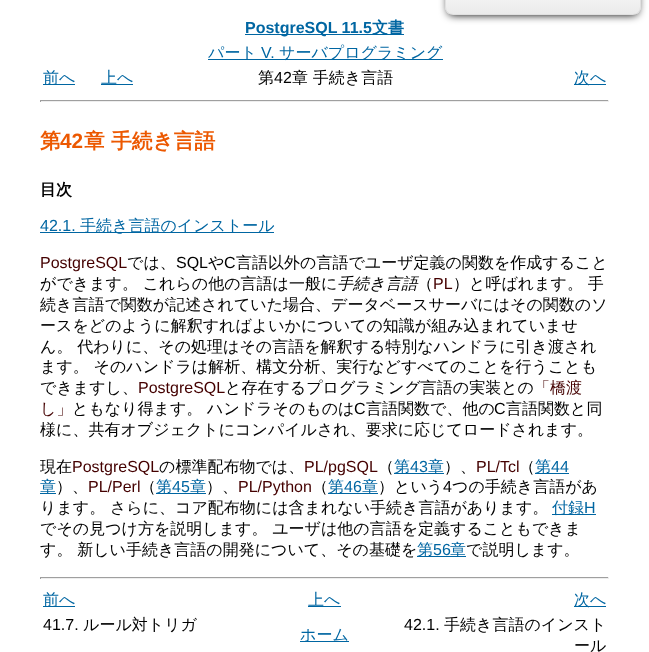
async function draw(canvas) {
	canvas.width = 649;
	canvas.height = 652;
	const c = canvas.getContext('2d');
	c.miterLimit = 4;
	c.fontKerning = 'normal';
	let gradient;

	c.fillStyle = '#fff';
	c.fillRect(0, 0, 649, 652);
	c.fillStyle = '#000';
	c.filter = 'blur(4px)';
	c.beginPath();
	c.roundRect(448, -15, 190, 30, 5);
	c.fill();
	c.filter = 'none';
	c.save();
	c.beginPath();
	c.roundRect(445, -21, 196, 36, 8);
	c.clip();
	gradient = c.createLinearGradient(543, -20, 543, 14);
	gradient.addColorStop(0, '#fbfbfb');
	gradient.addColorStop(1, '#ebebeb');
	c.fillStyle = gradient;
	c.fillRect(445, 0, 196, 14);
	c.restore();
	c.beginPath();
	c.roundRect(445.5, -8.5, 195, 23, 7.5);
	c.strokeStyle = '#e0e0e0';
	c.stroke();
	c.fillStyle = '#0066a2';
	c.fillRect(245, 34, 159, 1);
	c.font = 'bold 16px Liberation Sans';
	c.fillText('PostgreSQL 11.5', 245, 33);
	c.font = 'bold 16px WenQuanYi Zen Hei';
	c.fillText('文書', 372, 33);
	c.fillRect(208, 59, 235, 1);
	c.font = '500 16px WenQuanYi Zen Hei';
	c.fillText('パート', 208, 58);
	c.font = '16px Liberation Sans';
	c.fillText('V.', 261, 58);
	c.font = '500 16px WenQuanYi Zen Hei';
	c.fillText('サーバプログラミング', 279, 58);
	c.fillRect(43, 84, 32, 1);
	c.fillText('前へ', 43, 83);
	c.fillText('上へ', 101, 83);
	c.fillRect(101, 84, 32, 1);
	c.fillStyle = '#000';
	c.fillText('第', 258, 83);
	c.font = '16px Liberation Sans';
	c.fillText('42', 274, 83);
	c.font = '500 16px WenQuanYi Zen Hei';
	c.fillText('章 手続き言語', 292, 83);
	c.fillStyle = '#0066a2';
	c.fillRect(574, 84, 32, 1);
	c.fillText('次へ', 574, 83);
	for (const [x, y, w, h, color] of [
		[40, 100, 569, 1, '#9f9f9f'],
		[608, 100, 1, 2, '#eee'],
		[40, 101, 569, 1, '#eee'],
		[40, 100, 1, 2, '#9f9f9f'],
	]) {
		c.fillStyle = color;
		c.fillRect(x, y, w, h);
	}
	c.font = 'bold 20.75px WenQuanYi Zen Hei';
	c.fillStyle = '#ec5800';
	c.fillText('第', 40, 148);
	c.font = 'bold 20.75px Liberation Sans';
	c.fillText('42', 60, 148);
	c.font = 'bold 20.75px WenQuanYi Zen Hei';
	c.fillText('章 手続き言語', 84, 148);
	c.font = 'bold 16px WenQuanYi Zen Hei';
	c.fillStyle = '#000';
	c.fillText('目次', 40, 195);
	c.font = '16px Liberation Sans';
	c.fillStyle = '#0066a2';
	c.fillText('42.1.', 40, 231);
	c.fillRect(40, 232, 234, 1);
	c.font = '500 16px WenQuanYi Zen Hei';
	c.fillText('手続き言語のインストール', 80, 231);
	c.font = '16px Liberation Sans';
	c.fillStyle = '#400';
	c.fillText('PostgreSQL', 40, 268);
	c.font = '500 16px WenQuanYi Zen Hei';
	c.fillStyle = '#000';
	c.fillText('では、', 127, 268);
	c.font = '16px Liberation Sans';
	c.fillText('SQL', 176, 268);
	c.font = '500 16px WenQuanYi Zen Hei';
	c.fillText('や', 208, 268);
	c.font = '16px Liberation Sans';
	c.fillText('C', 224, 268);
	c.font = '500 16px WenQuanYi Zen Hei';
	c.fillText('言語以外の言語でユーザ定義の関数を作成すること', 236, 268);
	c.fillText('ができます。 これらの他の言語は一般に', 40, 289);
	c.font = 'italic 500 16px WenQuanYi Zen Hei';
	c.fillText('手続き言語', 337, 289);
	c.font = '500 16px WenQuanYi Zen Hei';
	c.fillText('（', 417, 289);
	c.font = '16px Liberation Sans';
	c.fillStyle = '#400';
	c.fillText('PL', 433, 289);
	c.font = '500 16px WenQuanYi Zen Hei';
	c.fillStyle = '#000';
	for (const [text, x, y] of [
		['）と呼ばれます。 手', 453, 289],
		['続き言語で関数が記述されていた場合、データベースサーバにはその関数のソ', 40, 310],
		['ースをどのように解釈すればよいかについての知識が組み込まれていませ', 40, 331],
		['ん。 代わりに、その処理はその言語を解釈する特別なハンドラに引き渡され', 40, 352],
		['ます。 そのハンドラは解析、構文分析、実行などすべてのことを行うことも', 40, 372],
		['できますし、', 40, 393],
	]) {
		c.fillText(text, x, y);
	}
	c.font = '16px Liberation Sans';
	c.fillStyle = '#400';
	c.fillText('PostgreSQL', 138, 393);
	c.font = '500 16px WenQuanYi Zen Hei';
	c.fillStyle = '#000';
	c.fillText('と存在するプログラミング言語の実装との', 225, 393);
	c.fillStyle = '#400';
	c.fillText('「橋渡', 534, 393);
	c.fillText('し」', 40, 414);
	c.fillStyle = '#000';
	c.fillText('ともなり得ます。 ハンドラそのものは', 72, 414);
	c.font = '16px Liberation Sans';
	c.fillText('C', 354, 414);
	c.font = '500 16px WenQuanYi Zen Hei';
	c.fillText('言語関数で、他の', 366, 414);
	c.font = '16px Liberation Sans';
	c.fillText('C', 494, 414);
	c.font = '500 16px WenQuanYi Zen Hei';
	for (const [text, x, y] of [
		['言語関数と同', 506, 414],
		['様に、共有オブジェクトにコンパイルされ、要求に応じてロードされます。', 40, 435],
		['現在', 40, 472],
	]) {
		c.fillText(text, x, y);
	}
	c.font = '16px Liberation Sans';
	c.fillStyle = '#400';
	c.fillText('PostgreSQL', 72, 472);
	c.font = '500 16px WenQuanYi Zen Hei';
	c.fillStyle = '#000';
	c.fillText('の標準配布物では、', 159, 472);
	c.font = '16px Liberation Sans';
	c.fillStyle = '#400';
	c.fillText('PL/pgSQL', 304, 472);
	c.font = '500 16px WenQuanYi Zen Hei';
	c.fillStyle = '#000';
	c.fillText('（', 378, 472);
	c.fillStyle = '#0066a2';
	c.fillRect(394, 473, 50, 1);
	c.fillText('第', 394, 472);
	c.font = '16px Liberation Sans';
	c.fillText('43', 410, 472);
	c.font = '500 16px WenQuanYi Zen Hei';
	c.fillText('章', 428, 472);
	c.fillStyle = '#000';
	c.fillText('）、', 444, 472);
	c.font = '16px Liberation Sans';
	c.fillStyle = '#400';
	c.fillText('PL/Tcl', 476, 472);
	c.font = '500 16px WenQuanYi Zen Hei';
	c.fillStyle = '#000';
	c.fillText('（', 519, 472);
	c.fillStyle = '#0066a2';
	c.fillRect(535, 473, 34, 1);
	c.fillText('第', 535, 472);
	c.font = '16px Liberation Sans';
	c.fillText('44', 551, 472);
	c.fillRect(40, 493, 16, 1);
	c.font = '500 16px WenQuanYi Zen Hei';
	c.fillText('章', 40, 492);
	c.fillStyle = '#000';
	c.fillText('）、', 56, 492);
	c.font = '16px Liberation Sans';
	c.fillStyle = '#400';
	c.fillText('PL/Perl', 88, 492);
	c.font = '500 16px WenQuanYi Zen Hei';
	c.fillStyle = '#000';
	c.fillText('（', 140, 492);
	c.fillStyle = '#0066a2';
	c.fillRect(156, 493, 50, 1);
	c.fillText('第', 156, 492);
	c.font = '16px Liberation Sans';
	c.fillText('45', 172, 492);
	c.font = '500 16px WenQuanYi Zen Hei';
	c.fillText('章', 190, 492);
	c.fillStyle = '#000';
	c.fillText('）、', 206, 492);
	c.font = '16px Liberation Sans';
	c.fillStyle = '#400';
	c.fillText('PL/Python', 238, 492);
	c.font = '500 16px WenQuanYi Zen Hei';
	c.fillStyle = '#000';
	c.fillText('（', 312, 492);
	c.fillStyle = '#0066a2';
	c.fillRect(328, 493, 50, 1);
	c.fillText('第', 328, 492);
	c.font = '16px Liberation Sans';
	c.fillText('46', 344, 492);
	c.font = '500 16px WenQuanYi Zen Hei';
	c.fillText('章', 362, 492);
	c.fillStyle = '#000';
	c.fillText('）という', 378, 492);
	c.font = '16px Liberation Sans';
	c.fillText('4', 443, 492);
	c.font = '500 16px WenQuanYi Zen Hei';
	c.fillText('つの手続き言語があ', 452, 492);
	c.fillText('ります。 さらに、コア配布物には含まれない手続き言語があります。', 40, 513);
	c.fillStyle = '#0066a2';
	c.fillRect(552, 514, 44, 1);
	c.fillText('付録', 552, 513);
	c.font = '16px Liberation Sans';
	c.fillText('H', 584, 513);
	c.font = '500 16px WenQuanYi Zen Hei';
	c.fillStyle = '#000';
	c.fillText('でその見つけ方を説明します。 ユーザは他の言語を定義することもできま', 40, 534);
	c.fillText('す。 新しい手続き言語の開発について、その基礎を', 40, 555);
	c.fillStyle = '#0066a2';
	c.fillRect(417, 556, 49, 1);
	c.fillText('第', 417, 555);
	c.font = '16px Liberation Sans';
	c.fillText('56', 433, 555);
	c.font = '500 16px WenQuanYi Zen Hei';
	c.fillText('章', 450, 555);
	c.fillStyle = '#000';
	c.fillText('で説明します。', 466, 555);
	for (const [x, y, w, h, color] of [
		[40, 577, 569, 1, '#9f9f9f'],
		[608, 577, 1, 2, '#eee'],
		[40, 578, 569, 1, '#eee'],
		[40, 577, 1, 2, '#9f9f9f'],
		[43, 606, 32, 1, '#0066a2'],
	]) {
		c.fillStyle = color;
		c.fillRect(x, y, w, h);
	}
	c.fillText('前へ', 43, 605);
	c.fillText('上へ', 308, 605);
	c.fillRect(308, 606, 33, 1);
	c.fillRect(574, 606, 32, 1);
	c.fillText('次へ', 574, 605);
	c.font = '16px Liberation Sans';
	c.fillStyle = '#000';
	c.fillText('41.7.', 43, 630);
	c.font = '500 16px WenQuanYi Zen Hei';
	c.fillText('ルール対トリガ', 83, 630);
	c.fillStyle = '#0066a2';
	c.fillRect(300, 641, 49, 1);
	c.fillText('ホーム', 300, 640);
	c.font = '16px Liberation Sans';
	c.fillStyle = '#000';
	c.fillText('42.1.', 404, 630);
	c.font = '500 16px WenQuanYi Zen Hei';
	c.fillText('手続き言語のインスト', 444, 630);
	c.fillText('ール', 574, 651);
}

draw(document.querySelector('canvas'));
